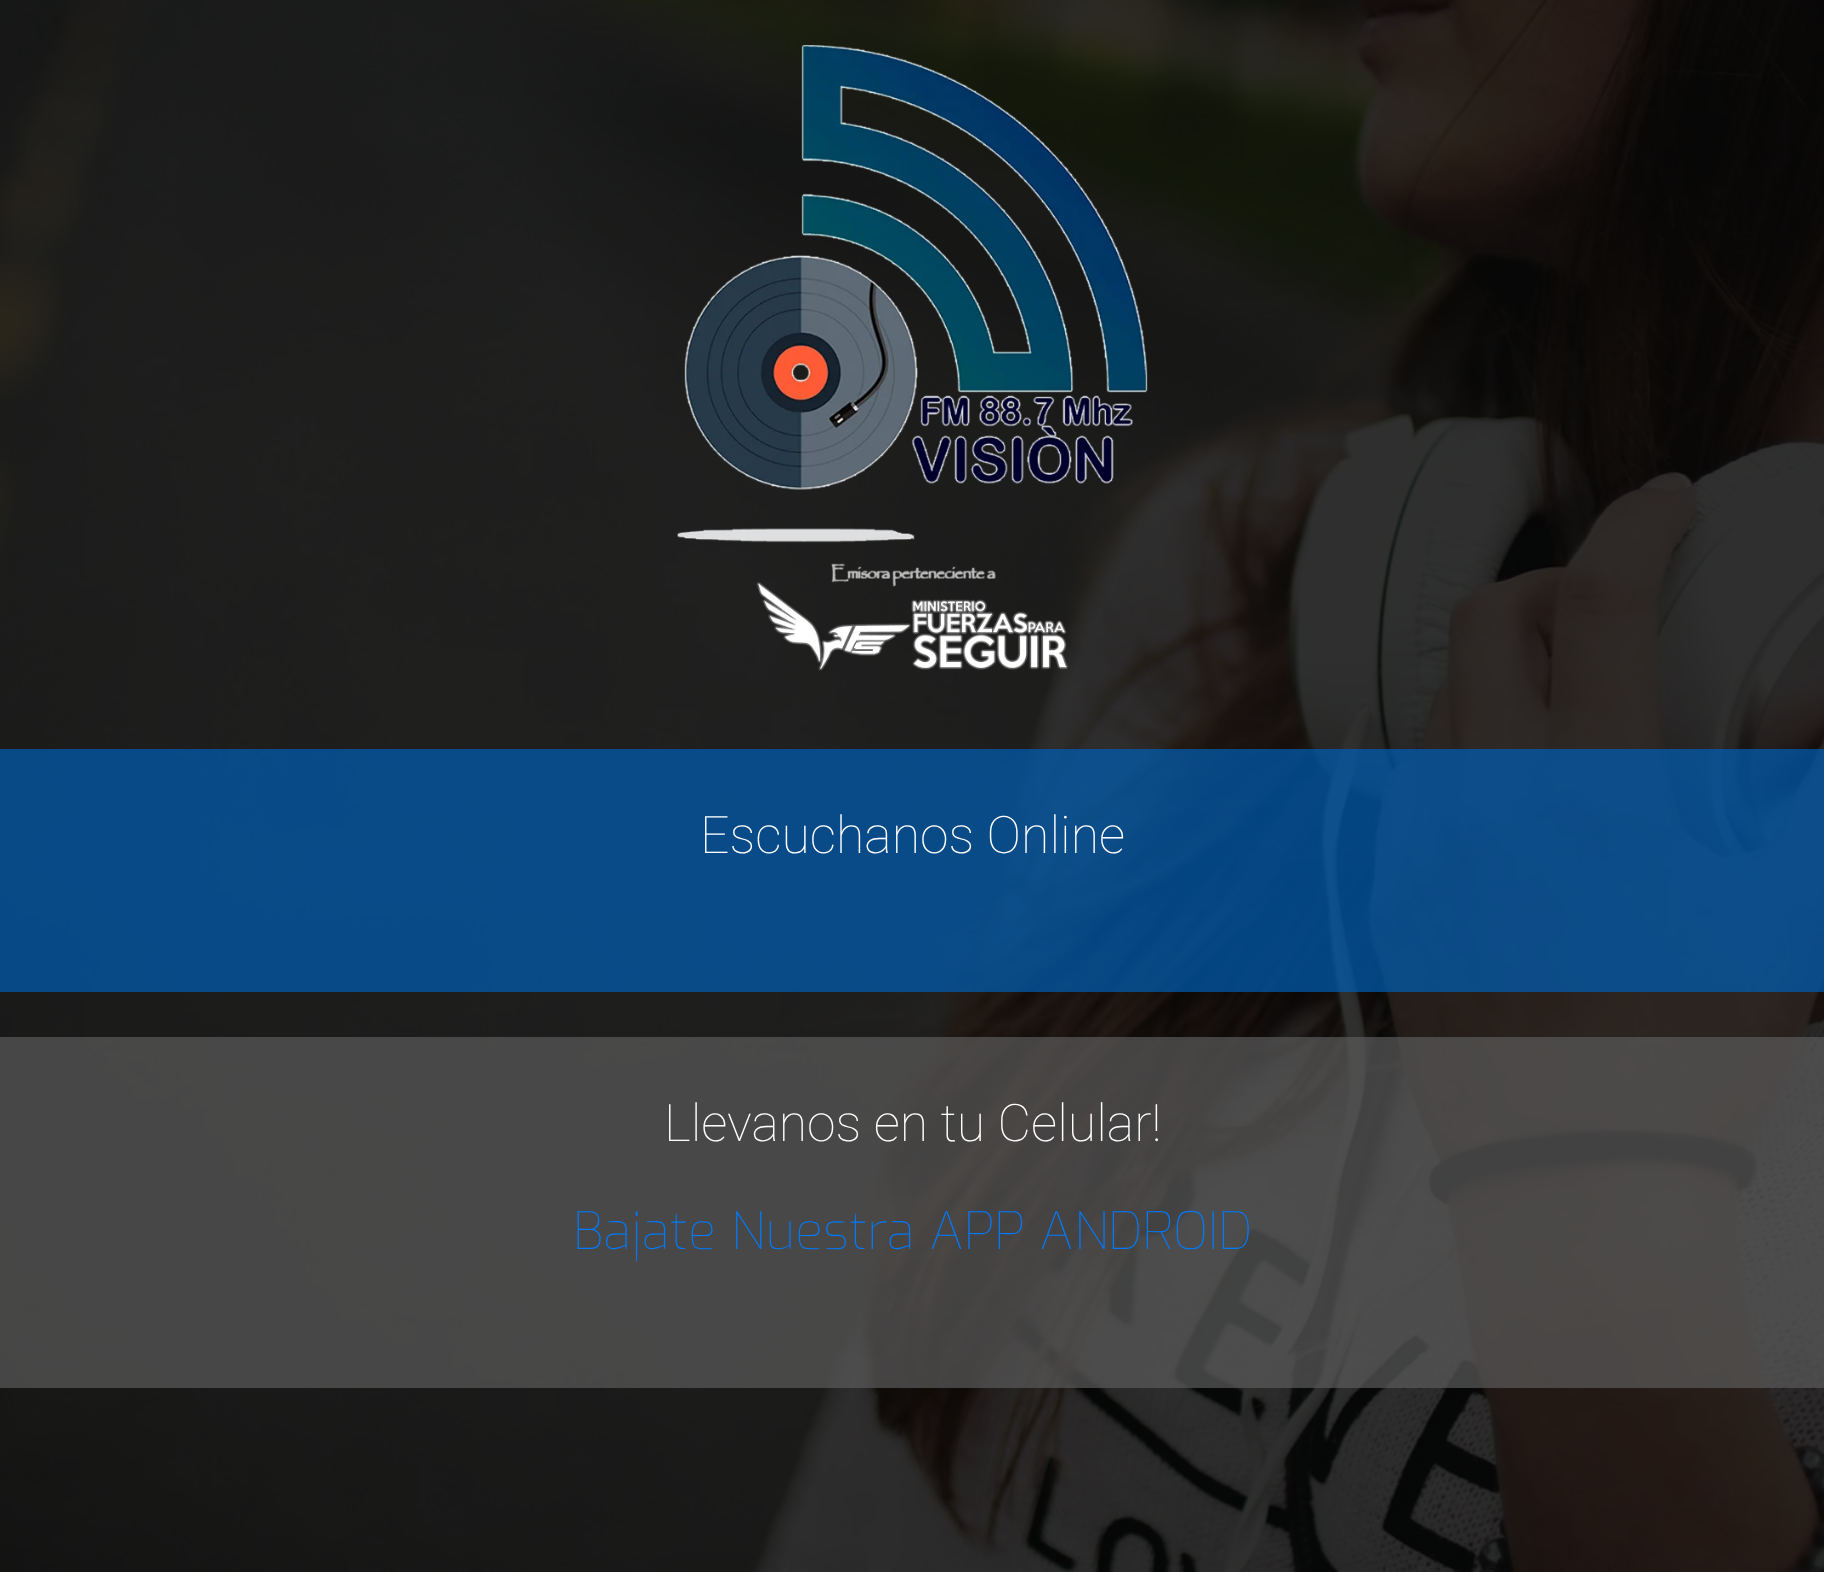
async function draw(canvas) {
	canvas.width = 1824;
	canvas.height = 1572;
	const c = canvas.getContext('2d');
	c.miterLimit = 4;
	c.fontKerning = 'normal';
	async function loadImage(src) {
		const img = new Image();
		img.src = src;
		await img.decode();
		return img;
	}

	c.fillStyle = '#fff';
	c.fillRect(0, 0, 1824, 1572);
	c.drawImage(await loadImage('img1.png'), 0, 0, 1824, 1572);
	c.drawImage(await loadImage('img2.png'), 677, 45, 471, 626);
	c.fillStyle = '#005eb5b3';
	c.fillRect(0, 749, 1824, 243);
	c.font = '100 51.75px Roboto';
	c.fillStyle = '#fff';
	c.fillText('Escuchanos Online', 700, 853);
	c.fillStyle = '#5b5b5bb3';
	c.fillRect(0, 1037, 1824, 351);
	c.fillStyle = '#fff';
	c.fillText('Llevanos en tu Celular!', 664, 1141);
	c.font = '100 51.75px Exo';
	c.fillStyle = '#007bff';
	c.fillText('Bajate Nuestra APP ANDROID', 573, 1249);
}

draw(document.querySelector('canvas'));
